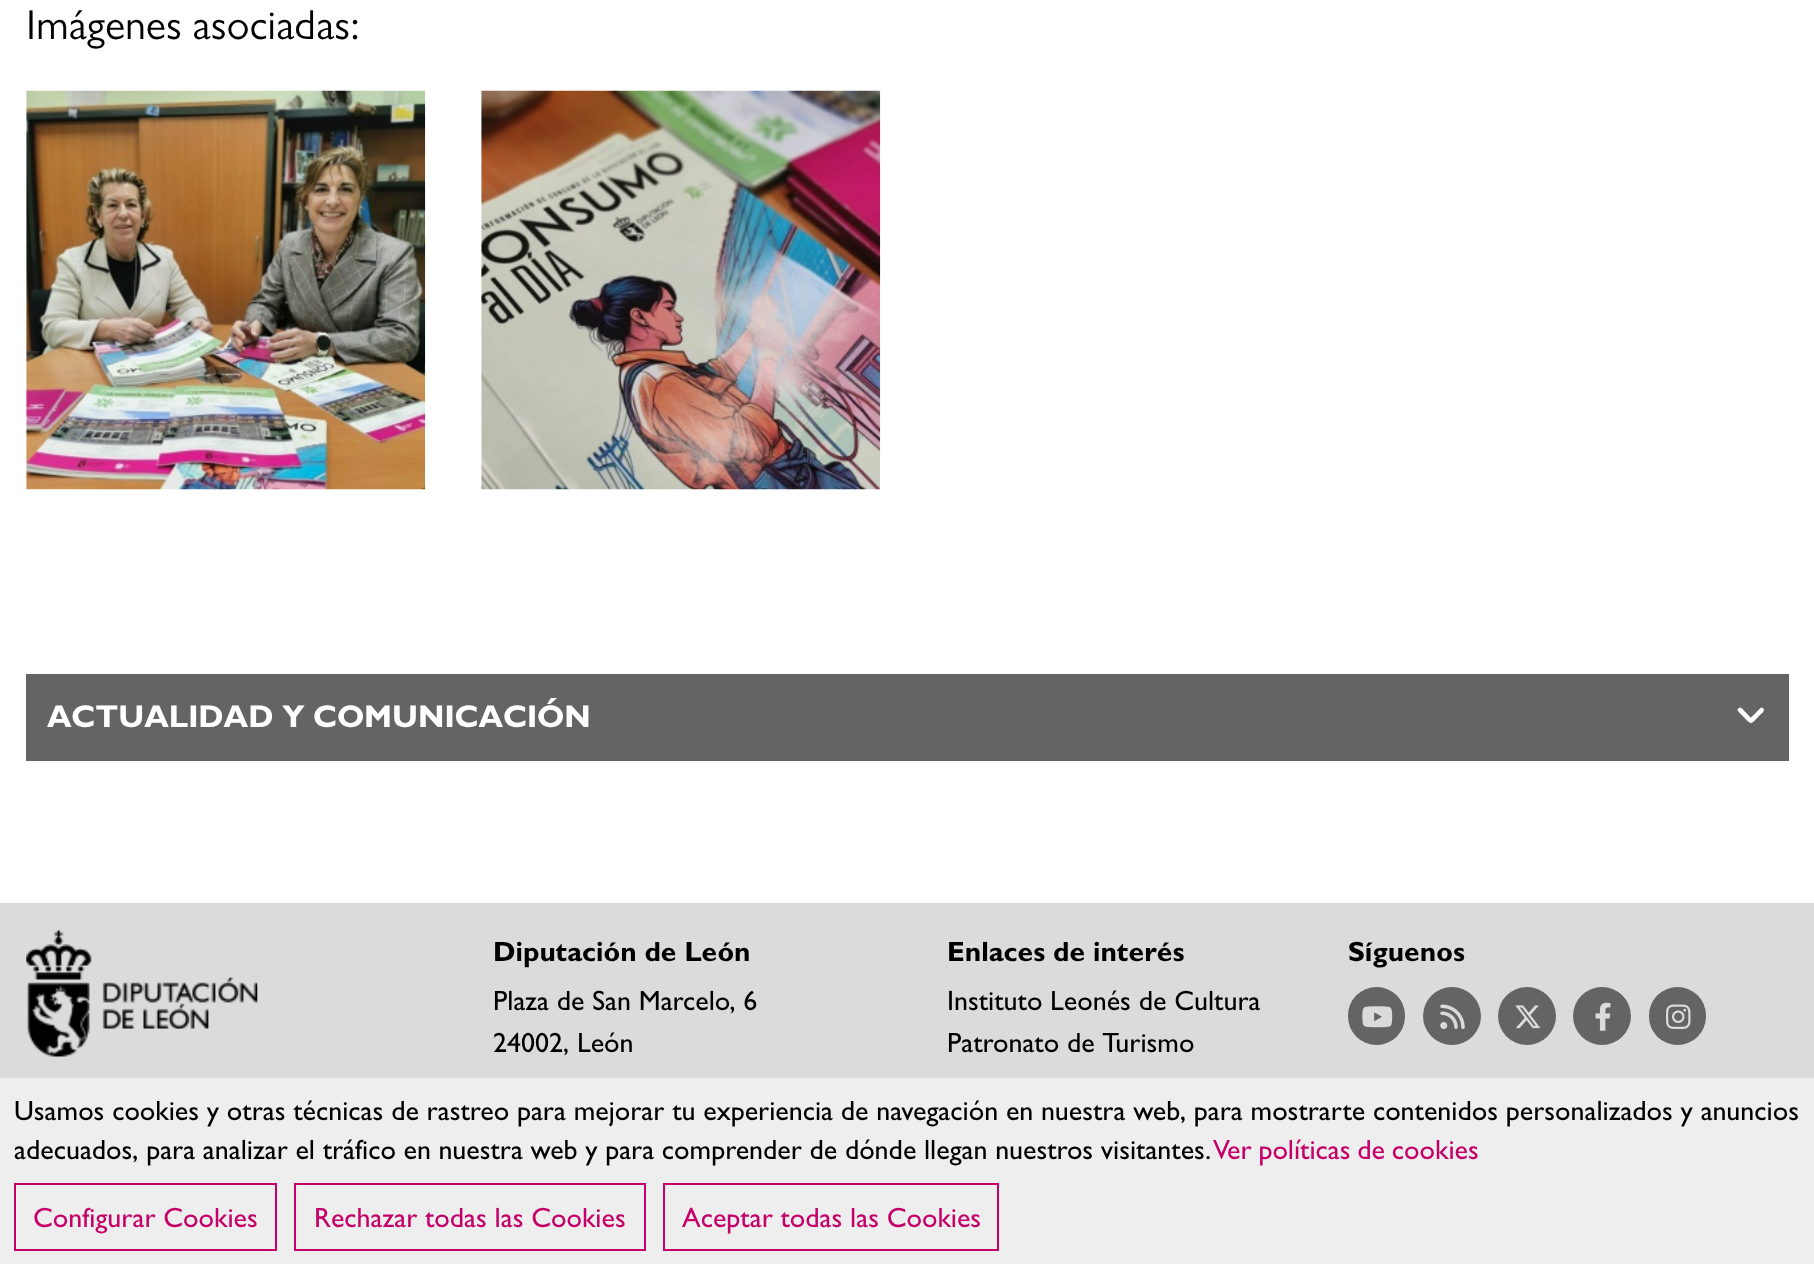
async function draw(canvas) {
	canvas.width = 1814;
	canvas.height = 1264;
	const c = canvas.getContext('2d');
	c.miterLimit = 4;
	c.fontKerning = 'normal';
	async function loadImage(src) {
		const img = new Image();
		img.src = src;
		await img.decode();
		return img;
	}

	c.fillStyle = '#fff';
	c.fillRect(0, 0, 1814, 1264);
	c.font = '300 42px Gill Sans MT';
	c.fillStyle = '#000';
	c.fillText('Imágenes asociadas:', 26, 39);
	c.drawImage(await loadImage('img1.png'), 26, 90, 400, 400);
	c.drawImage(await loadImage('img2.png'), 481, 90, 400, 400);
	c.fillStyle = '#646464';
	c.fillRect(26, 674, 1763, 87);
	c.font = 'bold 31.5px Gill Sans MT';
	c.fillStyle = '#fff';
	c.fillText('ACTUALIDAD Y COMUNICACIÓN', 47, 727);
	c.beginPath();
	c.moveTo(1741.5, 708);
	c.lineTo(1752.5, 719.5);
	c.bezierCurveTo(1753, 720, 1753, 721, 1752.5, 721.5);
	c.bezierCurveTo(1750, 725, 1746.5, 719.5, 1745, 718.5);
	c.bezierCurveTo(1744, 717, 1737.5, 711.5, 1737.5, 710);
	c.bezierCurveTo(1738, 708.5, 1740, 706.5, 1741.5, 708);
	c.closePath();
	c.fill();
	c.beginPath();
	c.moveTo(1749, 719.5);
	c.lineTo(1760.5, 708);
	c.bezierCurveTo(1761.5, 707.5, 1762, 708, 1763, 708);
	c.bezierCurveTo(1766, 710.5, 1761, 714, 1759.5, 715.5);
	c.bezierCurveTo(1758.5, 716.5, 1752.5, 723.5, 1751, 723);
	c.bezierCurveTo(1750, 722.5, 1748, 720.5, 1749, 719.5);
	c.closePath();
	c.fill();
	c.fillStyle = '#dbdbdb';
	c.fillRect(0, 903, 1814, 175);
	c.drawImage(await loadImage('img3.png'), 26, 930, 232, 127);
	c.font = 'bold 28px Gill Sans MT';
	c.fillStyle = '#000';
	c.fillText('Diputación de León', 493, 961);
	c.font = '28px Gill Sans MT';
	c.fillText('Plaza de San Marcelo, 6', 493, 1010);
	c.fillText('24002, León', 493, 1052);
	c.font = 'bold 28px Gill Sans MT';
	c.fillText('Enlaces de interés', 947, 961);
	c.font = '28px Gill Sans MT';
	c.fillText('Instituto Leonés de Cultura', 947, 1010);
	c.fillText('Patronato de Turismo', 947, 1052);
	c.font = 'bold 28px Gill Sans MT';
	c.fillText('Síguenos', 1348, 961);
	c.fillStyle = '#646464';
	c.beginPath();
	c.roundRect(1348, 987, 57, 58, 28.5);
	c.fill();
	c.drawImage(await loadImage('img4.png'), 1362, 1006, 31, 22);
	c.beginPath();
	c.arc(1452, 1016, 29, 0, 2 * Math.PI);
	c.fill();
	c.drawImage(await loadImage('img5.png'), 1440, 1004, 25, 25);
	c.beginPath();
	c.arc(1527, 1016, 29, 0, 2 * Math.PI);
	c.fill();
	c.drawImage(await loadImage('img6.png'), 1515, 1005, 26, 24);
	c.beginPath();
	c.arc(1602, 1016, 29, 0, 2 * Math.PI);
	c.fill();
	c.drawImage(await loadImage('img7.png'), 1595, 1002, 16, 29);
	c.beginPath();
	c.roundRect(1649, 987, 57, 58, 28.5);
	c.fill();
	c.drawImage(await loadImage('img8.png'), 1666, 1004, 25, 25);
	c.fillStyle = '#eee';
	c.fillRect(0, 1078, 1814, 186);
	c.font = '28px Gill Sans MT';
	c.fillStyle = '#000';
	c.fillText('Usamos cookies y otras técnicas de rastreo para mejorar tu experiencia de navegación en nuestra web, para mostrarte contenidos personalizados y anuncios', 14, 1120);
	c.wordSpacing = '-0.1px';
	c.fillText('adecuados, para analizar el tráfico en nuestra web y para comprender de dónde llegan nuestros visitantes.', 14, 1159);
	c.wordSpacing = '-1px';
	c.fillStyle = '#c50068';
	c.fillText('Ver políticas de cookies', 1213, 1159);
	c.strokeStyle = '#c50068';
	c.lineWidth = 2;
	c.strokeRect(15, 1184, 261, 66);
	c.wordSpacing = '0px';
	c.fillText('Configurar Cookies', 33, 1227);
	c.strokeRect(295, 1184, 350, 66);
	c.fillText('Rechazar todas las Cookies', 314, 1227);
	c.strokeRect(664, 1184, 334, 66);
	c.fillText('Aceptar todas las Cookies', 682, 1227);
}

draw(document.querySelector('canvas'));
